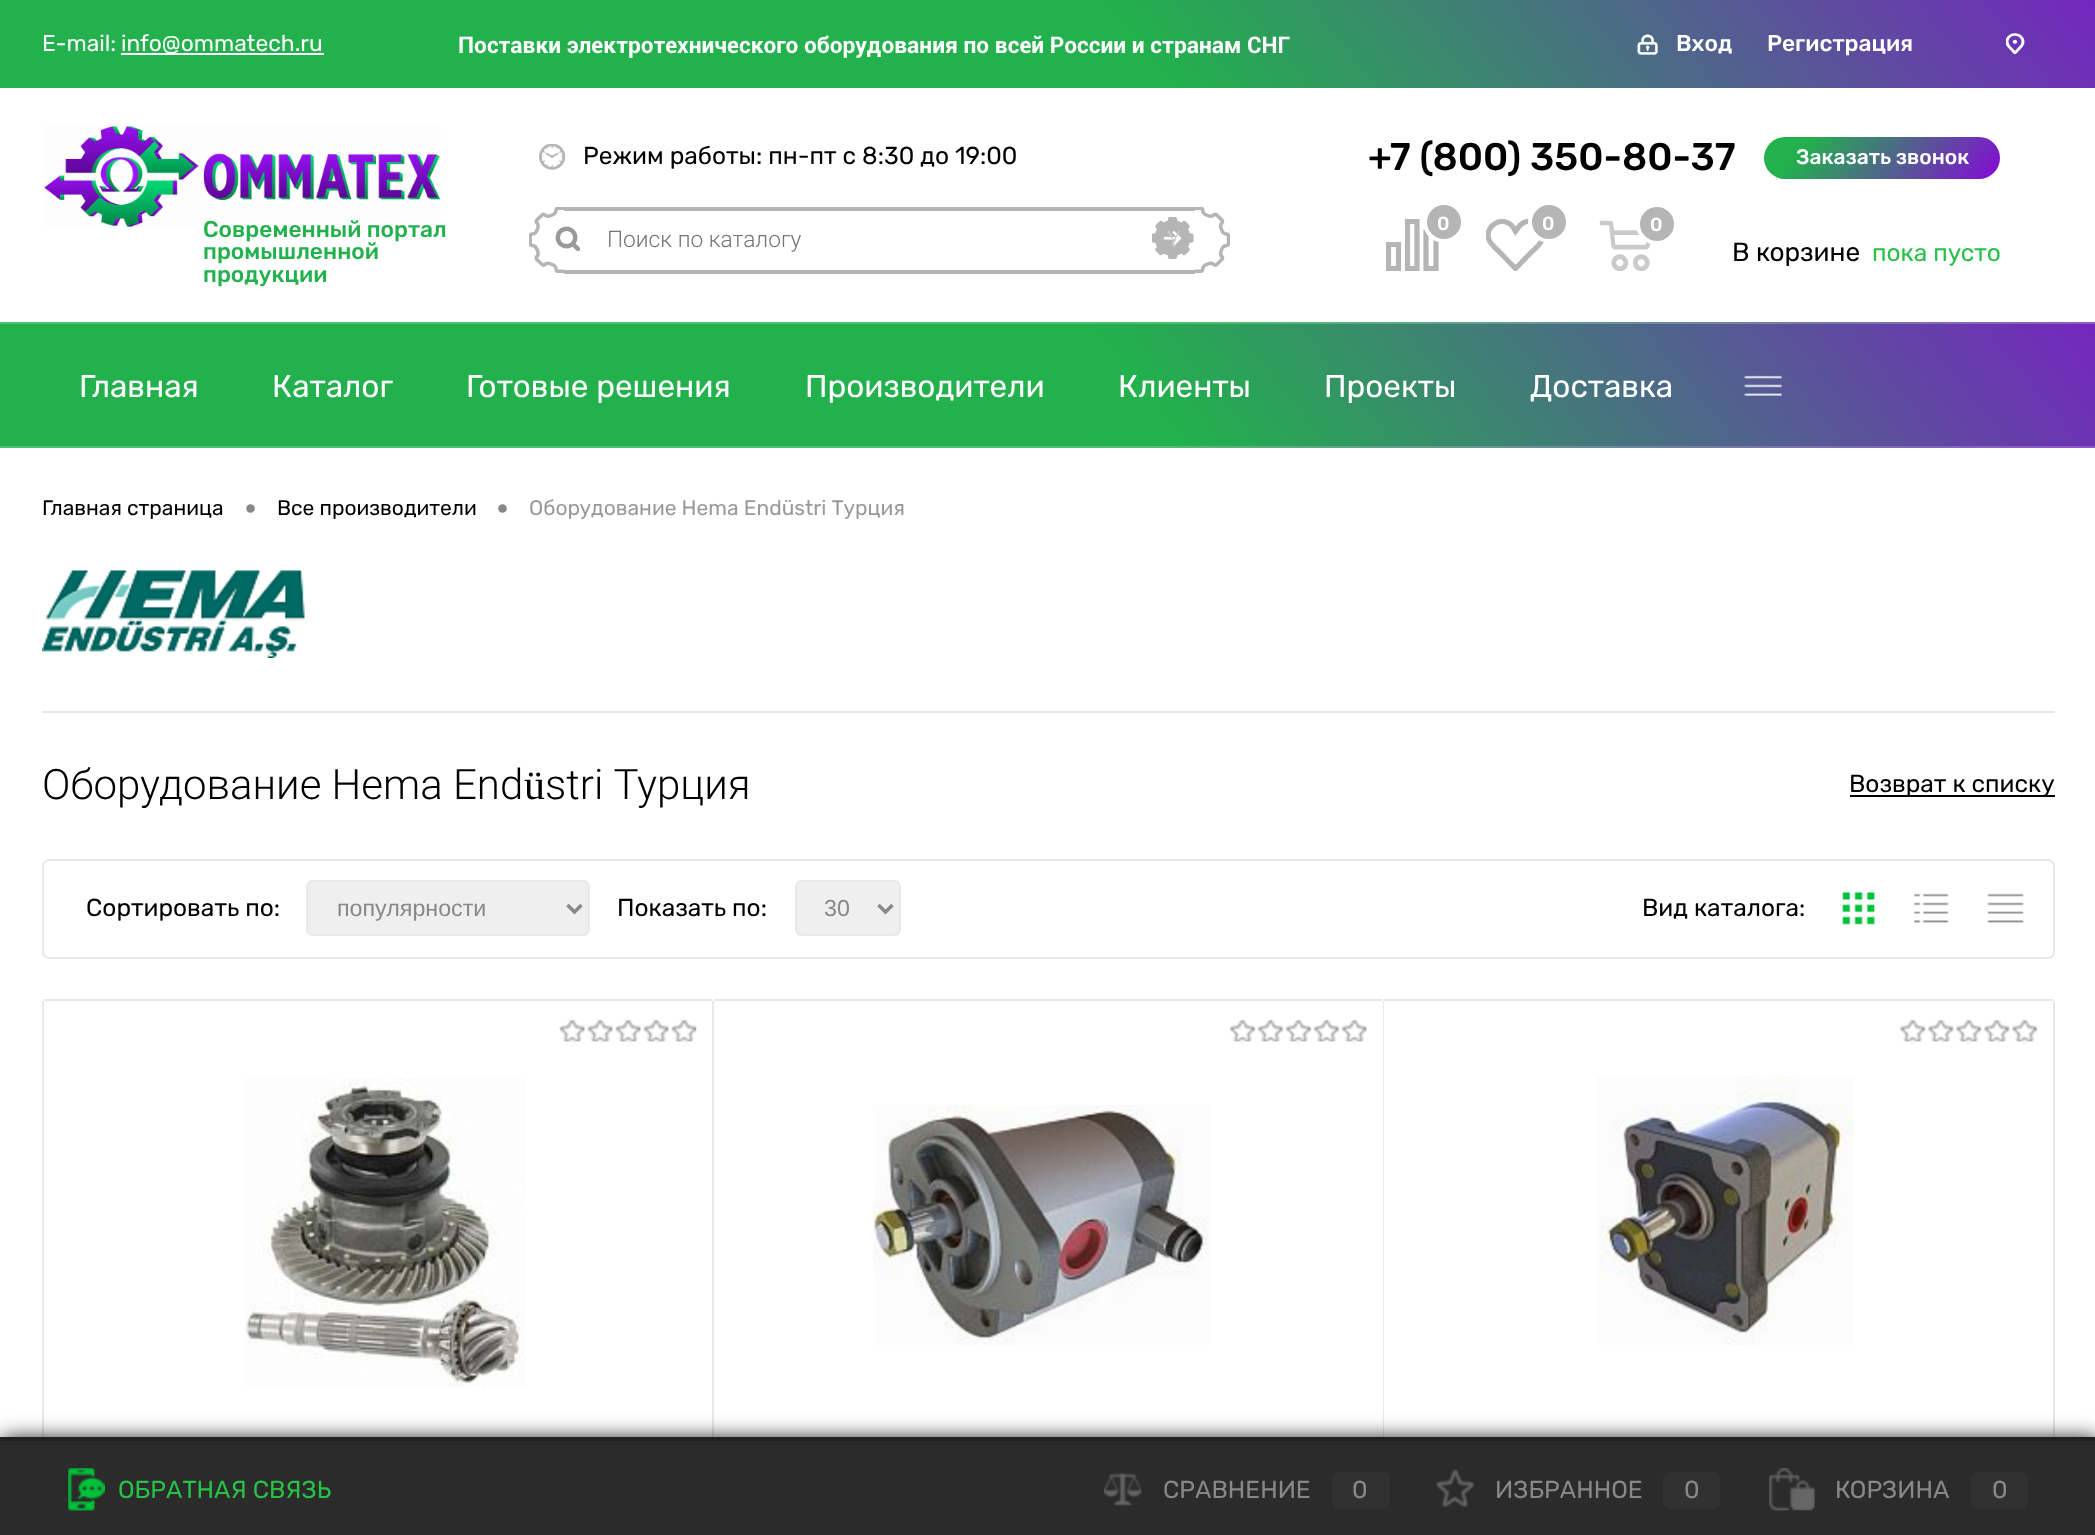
async function draw(canvas) {
	canvas.width = 2095;
	canvas.height = 1535;
	const c = canvas.getContext('2d');
	c.miterLimit = 4;
	c.fontKerning = 'normal';
	async function loadImage(src) {
		const img = new Image();
		img.src = src;
		await img.decode();
		return img;
	}
	let gradient;

	c.fillStyle = '#fff';
	c.fillRect(0, 0, 2095, 1535);
	gradient = c.createLinearGradient(1816, -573, 390, 573);
	gradient.addColorStop(0, '#22b14c');
	gradient.addColorStop(0, '#830dd3');
	gradient.addColorStop(0.5, '#22b14c');
	c.fillStyle = gradient;
	c.fillRect(0, 0, 2095, 88);
	c.font = '22.75px Rubik';
	c.fillStyle = '#fff';
	c.fillText('E-mail:', 42, 51);
	c.fillRect(121, 53, 203, 2);
	c.fillText('info@ommatech.ru', 121, 51);
	c.font = 'bold 22.75px Roboto';
	c.fillText('Поставки электротехнического оборудования по всей России и странам СНГ', 458, 53);
	c.drawImage(await loadImage('img1.png'), 1637, 34, 21, 21);
	c.font = '500 22.75px Rubik';
	c.fillText('Вход', 1676, 51);
	c.fillText('Регистрация', 1767, 51);
	c.drawImage(await loadImage('img2.png'), 2006, 33, 19, 21);
	c.drawImage(await loadImage('img3.png'), 44, 125, 397, 102);
	c.fillStyle = '#22b14c';
	for (const [text, x, y] of [
		['Современный портал', 203, 237],
		['промышленной', 203, 259],
		['продукции', 203, 282],
	]) {
		c.fillText(text, x, y);
	}
	c.drawImage(await loadImage('img4.png'), 539, 144, 26, 26);
	c.font = '24.5px Rubik';
	c.fillStyle = '#000';
	c.fillText('Режим работы: пн-пт с 8:30 до 19:00', 583, 164);
	c.fillStyle = '#b5b5b5';
	c.fillRect(564, 207, 631, 4);
	c.fillRect(564, 270, 631, 4);
	c.drawImage(await loadImage('img6.png'), 555, 226, 26, 26);
	c.drawImage(await loadImage('img5.png'), 529, 207, 35, 66);
	c.font = '300 22.75px Roboto';
	c.fillStyle = '#757575';
	c.fillText('Поиск по каталогу', 607, 247);
	c.drawImage(await loadImage('img7.png'), 1152, 217, 42, 42);
	c.fillStyle = '#cecece';
	c.fillText('Y', 1167, 247);
	c.drawImage(await loadImage('img8.png'), 1195, 207, 35, 66);
	c.font = '500 38.5px Rubik';
	c.fillStyle = '#000';
	c.fillText('+7 (800) 350-80-37', 1368, 170);
	gradient = c.createLinearGradient(1966, 223, 1798, 92);
	gradient.addColorStop(0.02, '#22b14c');
	gradient.addColorStop(0.02, '#830dd3');
	gradient.addColorStop(0.83, '#22b14c');
	c.fillStyle = gradient;
	c.beginPath();
	c.roundRect(1764, 137, 236, 42, 21);
	c.fill();
	c.font = '500 21px Rubik';
	c.fillStyle = '#fff';
	c.fillText('Заказать звонок', 1796, 164);
	c.save();
	c.beginPath();
	c.rect(1386, 219, 53, 52);
	c.clip();
	c.beginPath();
	c.moveTo(1407.5, 268.5);
	c.lineTo(1407.5, 221.5);
	c.lineTo(1417, 221.5);
	c.lineTo(1417, 268.5);
	c.closePath();
	c.moveTo(1426, 268.5);
	c.lineTo(1426, 232);
	c.lineTo(1436, 232);
	c.lineTo(1436, 268.5);
	c.closePath();
	c.moveTo(1388.5, 268.5);
	c.lineTo(1388.5, 244.5);
	c.lineTo(1398.5, 244.5);
	c.lineTo(1398.5, 268.5);
	c.closePath();
	c.strokeStyle = '#b5b5b5';
	c.lineWidth = 5.2;
	c.stroke();
	c.restore();
	c.fillStyle = '#b5b5b5';
	c.beginPath();
	c.arc(1444, 222, 19, 0, 2 * Math.PI);
	c.fill();
	c.strokeStyle = '#fff';
	c.lineWidth = 4;
	c.stroke();
	c.font = '500 19px Rubik';
	c.fillStyle = '#fff';
	c.fillText('0', 1437, 230);
	c.save();
	c.beginPath();
	c.rect(1486, 219, 61, 52);
	c.clip();
	c.beginPath();
	c.moveTo(1513.5, 228);
	c.lineTo(1515.5, 231.5);
	c.bezierCurveTo(1517.5, 229, 1518.5, 226, 1521.5, 224);
	c.bezierCurveTo(1532.5, 215.5, 1547.5, 228.5, 1541.5, 241);
	c.bezierCurveTo(1539.5, 245.5, 1534, 249.5, 1530.5, 253);
	c.lineTo(1515.5, 268.5);
	c.lineTo(1500.5, 253);
	c.bezierCurveTo(1497, 249.5, 1492, 245.5, 1489.5, 241);
	c.bezierCurveTo(1482.5, 225.5, 1504.5, 213.5, 1513.5, 228);
	c.closePath();
	c.strokeStyle = '#b5b5b5';
	c.lineWidth = 5.2;
	c.stroke();
	c.restore();
	c.fillStyle = '#b5b5b5';
	c.beginPath();
	c.arc(1549, 222, 19, 0, 2 * Math.PI);
	c.fill();
	c.stroke();
	c.fillStyle = '#fff';
	c.fillText('0', 1542, 230);
	c.drawImage(await loadImage('img9.png'), 1599, 220, 52, 51);
	c.fillStyle = '#b5b5b5';
	c.beginPath();
	c.arc(1657, 224, 19, 0, 2 * Math.PI);
	c.fill();
	c.stroke();
	c.fillStyle = '#fff';
	c.fillText('0', 1650, 231);
	c.font = '26.25px Rubik';
	c.fillStyle = '#000';
	c.fillText('В корзине', 1732, 261);
	c.font = '24.5px Rubik';
	c.fillStyle = '#27c148';
	c.fillText('пока пусто', 1872, 261);
	gradient = c.createLinearGradient(1826, -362, 381, 798);
	gradient.addColorStop(0, '#4ec170');
	gradient.addColorStop(0, '#9c3ddc');
	gradient.addColorStop(0.5, '#4ec170');
	c.fillStyle = gradient;
	c.fillRect(0, 322, 2095, 2);
	gradient = c.createLinearGradient(1826, -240, 381, 921);
	gradient.addColorStop(0, '#22b14c');
	gradient.addColorStop(0, '#830dd3');
	gradient.addColorStop(0.5, '#22b14c');
	c.fillStyle = gradient;
	c.fillRect(0, 324, 2095, 122);
	gradient = c.createLinearGradient(1826, -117, 381, 1043);
	gradient.addColorStop(0, '#4ec170');
	gradient.addColorStop(0, '#9c3ddc');
	gradient.addColorStop(0.5, '#4ec170');
	c.fillStyle = gradient;
	c.fillRect(0, 446, 2095, 2);
	c.font = '31.5px Rubik';
	c.fillStyle = '#fff';
	for (const [text, x, y] of [
		['Главная', 79, 397],
		['Каталог', 272, 397],
		['Готовые решения', 466, 397],
		['Производители', 805, 397],
		['Клиенты', 1118, 397],
		['Проекты', 1324, 397],
		['Доставка', 1530, 397],
	]) {
		c.fillText(text, x, y);
	}
	c.drawImage(await loadImage('img10.png'), 1744, 375, 38, 21);
	c.font = '21px Rubik';
	c.fillStyle = '#000';
	c.fillText('Главная страница', 42, 515);
	c.font = '31.5px Liberation Sans';
	c.fillStyle = '#888';
	c.fillText('•', 245, 519);
	c.font = '21px Rubik';
	c.fillStyle = '#000';
	c.fillText('Все производители', 277, 515);
	c.font = '31.5px Liberation Sans';
	c.fillStyle = '#888';
	c.fillText('•', 497, 519);
	c.font = '21px Rubik';
	c.fillStyle = '#999';
	c.fillText('Оборудование Hema Endüstri Турция', 529, 515);
	c.drawImage(await loadImage('img11.png'), 42, 570, 263, 88);
	c.fillStyle = '#e7e8ea';
	c.fillRect(42, 711, 2013, 2);
	c.font = '300 42px Roboto';
	c.fillStyle = '#000';
	c.fillText('Оборудование Hema End', 42, 799);
	c.font = '42px Liberation Serif';
	c.fillText('ü', 524, 799);
	c.font = '300 42px Roboto';
	c.fillText('stri Турция', 545, 799);
	c.beginPath();
	c.roundRect(43, 860, 2011, 98, 6);
	c.strokeStyle = '#e7e8ea';
	c.lineWidth = 2;
	c.stroke();
	c.font = '24.5px Rubik';
	c.fillText('Сортировать по:', 86, 916);
	c.fillStyle = '#efefef';
	c.beginPath();
	c.roundRect(307, 881, 282, 54, 6);
	c.fill();
	c.stroke();
	c.beginPath();
	c.moveTo(567.5, 905);
	c.lineTo(574.5, 912);
	c.lineTo(581.5, 905);
	c.strokeStyle = '#888';
	c.lineWidth = 3.5;
	c.stroke();
	c.font = '23.25px Liberation Sans';
	c.fillStyle = '#888';
	c.fillText('популярности', 337, 916);
	c.font = '24.5px Rubik';
	c.fillStyle = '#000';
	c.fillText('Показать по:', 617, 916);
	c.fillStyle = '#efefef';
	c.beginPath();
	c.roundRect(796, 881, 104, 54, 6);
	c.fill();
	c.strokeStyle = '#e7e8ea';
	c.lineWidth = 2;
	c.stroke();
	c.beginPath();
	c.moveTo(878.5, 905);
	c.lineTo(885.5, 912);
	c.lineTo(892.5, 905);
	c.strokeStyle = '#888';
	c.lineWidth = 3.5;
	c.stroke();
	c.font = '23.25px Liberation Sans';
	c.fillStyle = '#888';
	c.fillText('30', 824, 916);
	c.font = '24.5px Rubik';
	c.fillStyle = '#000';
	c.fillText('Вид каталога:', 1642, 916);
	c.drawImage(await loadImage('img12.png'), 1842, 892, 33, 33);
	c.drawImage(await loadImage('img13.png'), 1914, 893, 35, 30);
	c.drawImage(await loadImage('img14.png'), 1987, 893, 37, 30);
	for (const [x, y, w, h, color] of [
		[42, 1001, 2, 436, '#e7e8ea'],
		[712, 1001, 2, 436, '#e7e8ea'],
		[44, 999, 668, 2, '#e7e8ea'],
	]) {
		c.fillStyle = color;
		c.fillRect(x, y, w, h);
	}
	c.drawImage(await loadImage('img15.png'), 559, 1019, 138, 24);
	c.drawImage(await loadImage('img16.png'), 244, 1078, 282, 309);
	c.fillRect(1383, 1001, 1, 436);
	c.fillRect(714, 999, 669, 2);
	c.drawImage(await loadImage('img17.png'), 1229, 1019, 138, 24);
	c.drawImage(await loadImage('img18.png'), 872, 1105, 338, 240);
	c.fillRect(2053, 1001, 2, 436);
	c.fillRect(1384, 999, 669, 2);
	c.drawImage(await loadImage('img19.png'), 1900, 1019, 137, 24);
	c.drawImage(await loadImage('img20.png'), 1597, 1076, 257, 269);
	c.fillStyle = '#000';
	c.fillRect(1850, 795, 205, 2);
	c.fillText('Возврат к списку', 1849, 792);
	c.filter = 'blur(10.5px)';
	c.beginPath();
	c.rect(2, 1439, 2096, 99);
	c.fill();
	c.filter = 'none';
	c.fillStyle = '#2b2b2b';
	c.fillRect(0, 1441, 2095, 94);
	c.fillStyle = '#202020';
	c.fillRect(0, 1437, 2095, 4);
	c.drawImage(await loadImage('img21.png'), 68, 1468, 37, 43);
	c.fillStyle = '#27c148';
	c.fillText('ОБРАТНАЯ СВЯЗЬ', 118, 1498);
	c.drawImage(await loadImage('img22.png'), 1104, 1473, 38, 33);
	c.fillStyle = '#888';
	c.fillText('СРАВНЕНИЕ', 1163, 1498);
	c.fillStyle = '#313131';
	c.beginPath();
	c.roundRect(1332, 1472, 58, 37, 7);
	c.fill();
	c.fillStyle = '#888';
	c.fillText('0', 1352, 1498);
	c.drawImage(await loadImage('img23.png'), 1436, 1469, 38, 39);
	c.fillText('ИЗБРАННОЕ', 1495, 1498);
	c.fillStyle = '#313131';
	c.beginPath();
	c.roundRect(1663, 1472, 57, 37, 7);
	c.fill();
	c.fillStyle = '#888';
	c.fillText('0', 1684, 1498);
	c.drawImage(await loadImage('img24.png'), 1769, 1468, 46, 43);
	c.fillText('КОРЗИНА', 1835, 1498);
	c.fillStyle = '#313131';
	c.beginPath();
	c.roundRect(1971, 1472, 57, 37, 7);
	c.fill();
	c.fillStyle = '#888';
	c.fillText('0', 1992, 1498);
}

draw(document.querySelector('canvas'));
